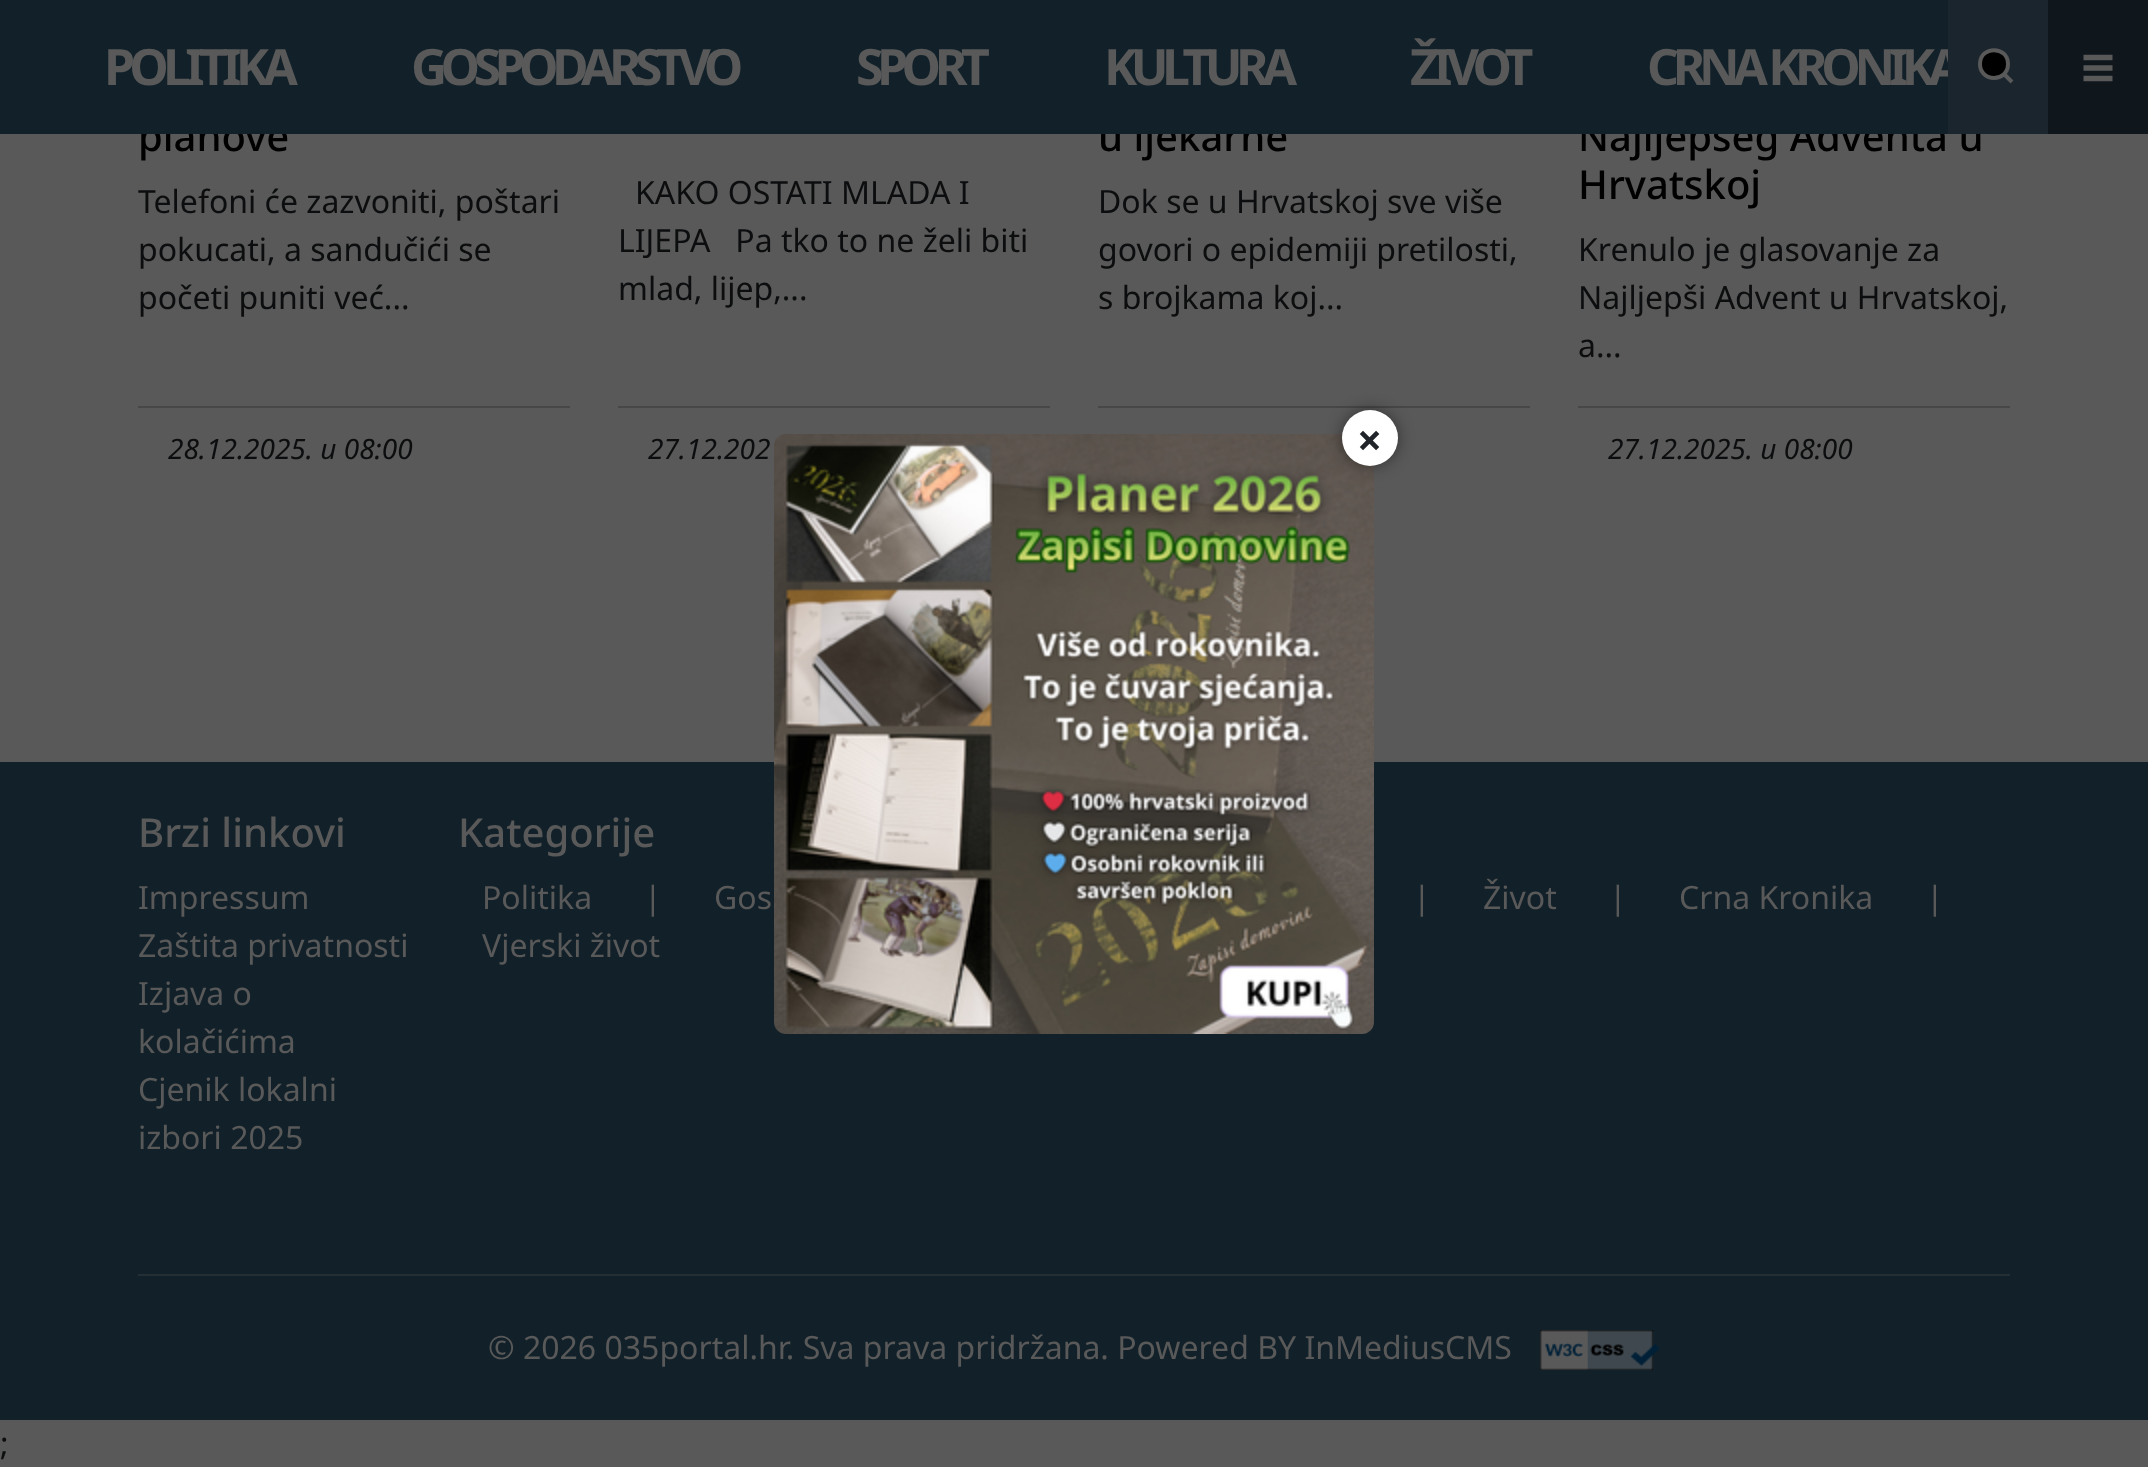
async function draw(canvas) {
	canvas.width = 2148;
	canvas.height = 1467;
	const c = canvas.getContext('2d');
	c.miterLimit = 4;
	c.fontKerning = 'normal';
	async function loadImage(src) {
		const img = new Image();
		img.src = src;
		await img.decode();
		return img;
	}

	c.fillStyle = '#595959';
	c.fillRect(0, 0, 2148, 1467);
	c.font = '500 40px Noto Sans';
	c.fillStyle = '#000';
	for (const [text, x, y] of [
		['planove', 138, 151],
		['u ljekarne', 1098, 151],
		['Najljepšeg Adventa u', 1578, 151],
	]) {
		c.fillText(text, x, y);
	}
	c.fillStyle = '#122129';
	c.fillRect(0, 0, 1948, 134);
	c.letterSpacing = '-5.75px';
	c.font = 'bold 50px Noto Sans';
	c.fillStyle = '#595959';
	c.fillText('POLITIKA', 104, 85);
	c.letterSpacing = '-6.6px';
	c.fillText('GOSPODARSTVO', 411, 85);
	c.letterSpacing = '-6.5px';
	c.fillText('SPORT', 856, 85);
	c.fillText('KULTURA', 1104, 85);
	c.letterSpacing = '-6px';
	c.fillText('ŽIVOT', 1410, 85);
	c.letterSpacing = '-6.4px';
	c.fillText('CRNA KRONIKA', 1647, 85);
	c.fillStyle = '#1b252e';
	c.fillRect(1948, 0, 100, 134);
	c.fillStyle = '#000';
	c.beginPath();
	c.moveTo(2012, 82);
	c.lineTo(2004, 74);
	c.moveTo(2008, 64);
	c.bezierCurveTo(2008, 82.5, 1980, 82.5, 1980, 64);
	c.bezierCurveTo(1980, 45.5, 2008, 45.5, 2008, 64);
	c.closePath();
	c.fill();
	c.strokeStyle = '#595959';
	c.lineWidth = 4;
	c.stroke();
	c.fillStyle = '#0f161c';
	c.fillRect(2048, 0, 100, 134);
	c.beginPath();
	c.moveTo(2083.5, 57.5);
	c.lineTo(2112.5, 57.5);
	c.moveTo(2083.5, 68);
	c.lineTo(2112.5, 68);
	c.moveTo(2083.5, 78.5);
	c.lineTo(2112.5, 78.5);
	c.lineWidth = 5.3;
	c.stroke();
	c.letterSpacing = '0px';
	c.font = '32px Noto Sans';
	c.fillStyle = '#0c0d0e';
	for (const [text, x, y] of [
		['Telefoni će zazvoniti, poštari', 138, 213],
		['pokucati, a sandučići se', 138, 261],
		['početi puniti već...', 138, 309],
	]) {
		c.fillText(text, x, y);
	}
	c.fillStyle = '#474747';
	c.fillRect(138, 406, 432, 2);
	c.font = 'italic 28px Noto Sans';
	c.fillStyle = '#0c0d0e';
	c.fillText('28.12.2025. u 08:00', 168, 459);
	c.font = '32px Noto Sans';
	for (const [text, x, y] of [
		['KAKO OSTATI MLADA I', 635, 204],
		['LIJEPA   Pa tko to ne želi biti', 618, 252],
		['mlad, lijep,...', 618, 300],
	]) {
		c.fillText(text, x, y);
	}
	c.fillStyle = '#474747';
	c.fillRect(618, 406, 432, 2);
	c.font = 'italic 28px Noto Sans';
	c.fillStyle = '#0c0d0e';
	c.fillText('27.12.202', 648, 459);
	c.font = '32px Noto Sans';
	for (const [text, x, y] of [
		['Dok se u Hrvatskoj sve više', 1098, 213],
		['govori o epidemiji pretilosti,', 1098, 261],
		['s brojkama koj...', 1098, 309],
	]) {
		c.fillText(text, x, y);
	}
	c.fillStyle = '#474747';
	c.fillRect(1098, 406, 432, 2);
	c.font = '500 40px Noto Sans';
	c.fillStyle = '#000';
	c.fillText('Hrvatskoj', 1578, 199);
	c.font = '32px Noto Sans';
	c.fillStyle = '#0c0d0e';
	for (const [text, x, y] of [
		['Krenulo je glasovanje za', 1578, 261],
		['Najljepši Advent u Hrvatskoj,', 1578, 309],
		['a...', 1578, 357],
	]) {
		c.fillText(text, x, y);
	}
	c.fillStyle = '#474747';
	c.fillRect(1578, 406, 432, 2);
	c.font = 'italic 28px Noto Sans';
	c.fillStyle = '#0c0d0e';
	c.fillText('27.12.2025. u 08:00', 1608, 459);
	c.fillStyle = '#122129';
	c.fillRect(0, 762, 2148, 658);
	c.drawImage(await loadImage('img1.png'), 774, 434, 600, 600);
	c.fillStyle = '#00000073';
	c.filter = 'blur(8px)';
	c.beginPath();
	c.roundRect(1342, 410, 56, 56, 28);
	c.fill();
	c.filter = 'none';
	c.fillStyle = '#fff';
	c.beginPath();
	c.arc(1370, 438, 28, 0, 2 * Math.PI);
	c.fill();
	c.font = 'bold 44px Noto Sans';
	c.fillStyle = '#212529';
	c.fillText('×', 1357, 456);
	c.font = '500 40px Noto Sans';
	c.fillStyle = '#595959';
	c.fillText('Brzi linkovi', 138, 847);
	c.font = '32px Noto Sans';
	for (const [text, x, y] of [
		['Impressum', 138, 909],
		['Zaštita privatnosti', 138, 957],
		['Izjava o', 138, 1005],
		['kolačićima', 138, 1053],
		['Cjenik lokalni', 138, 1101],
		['izbori 2025', 138, 1149],
	]) {
		c.fillText(text, x, y);
	}
	c.font = '500 40px Noto Sans';
	c.fillText('Kategorije', 458, 847);
	c.font = '32px Noto Sans';
	for (const [text, x, y] of [
		['Politika', 482, 909],
		['|', 644, 909],
		['Gos', 714, 909],
		['|', 1413, 909],
		['Život', 1483, 909],
		['|', 1609, 909],
		['Crna Kronika', 1679, 909],
		['|', 1926, 909],
		['Vjerski život', 482, 957],
	]) {
		c.fillText(text, x, y);
	}
	c.fillStyle = '#242f35';
	c.fillRect(138, 1274, 1872, 2);
	c.fillStyle = '#595959';
	c.fillText('© 2026 035portal.hr. Sva prava pridržana. Powered BY InMediusCMS', 488, 1359);
	c.drawImage(await loadImage('img2.png'), 1540, 1330, 120, 40);
	c.fillStyle = '#0c0d0e';
	c.fillText(';', 0, 1455);
}

draw(document.querySelector('canvas'));
